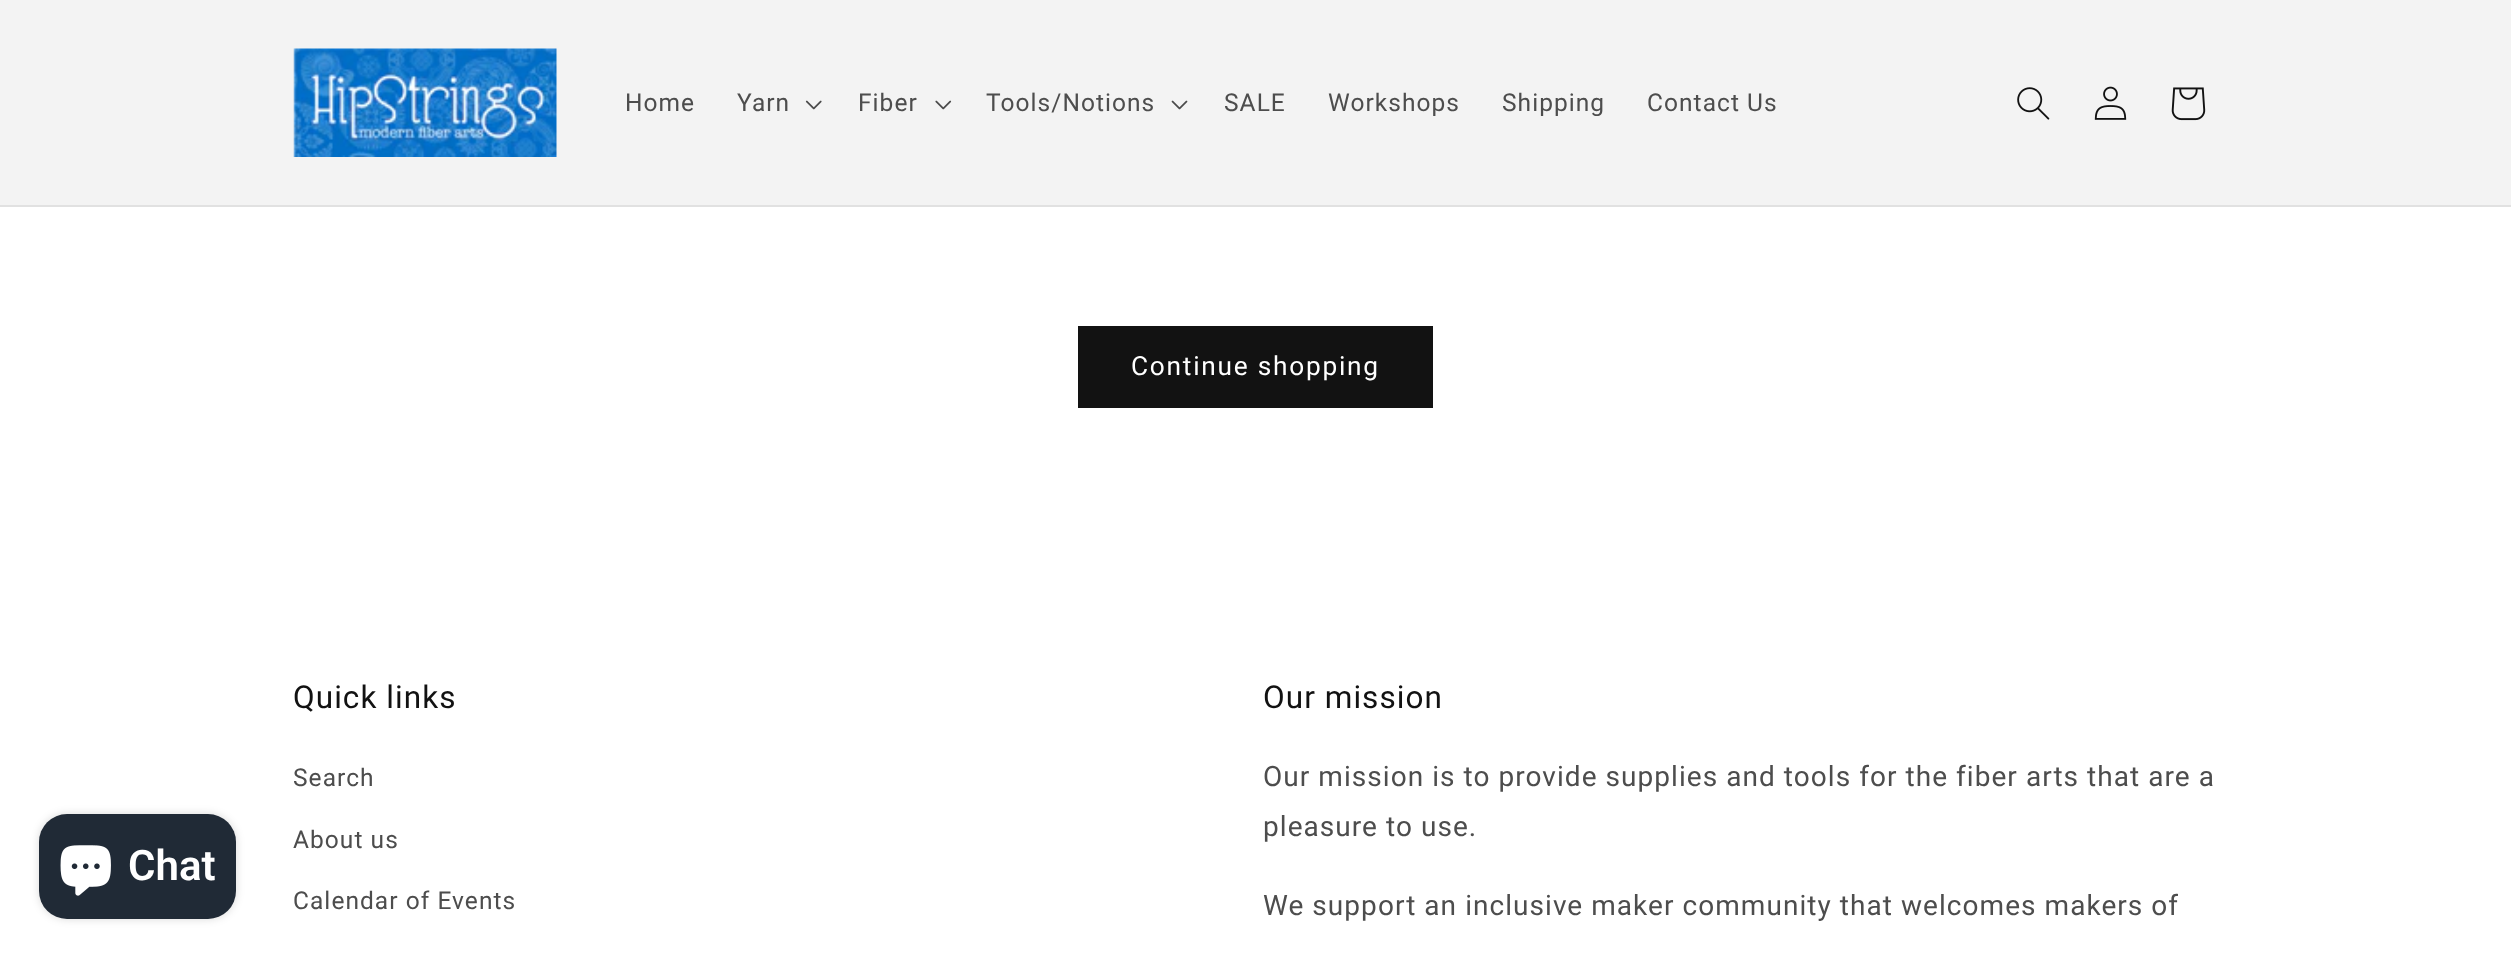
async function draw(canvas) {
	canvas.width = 2511;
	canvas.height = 954;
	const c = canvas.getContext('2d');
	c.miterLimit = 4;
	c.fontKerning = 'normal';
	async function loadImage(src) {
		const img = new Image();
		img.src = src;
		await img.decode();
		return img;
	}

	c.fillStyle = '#fff';
	c.fillRect(0, 0, 2511, 954);
	c.fillStyle = '#f3f3f3';
	c.fillRect(0, 0, 2511, 205);
	c.fillStyle = '#e1e1e1';
	c.fillRect(0, 205, 2511, 2);
	c.drawImage(await loadImage('img1.png'), 293, 48, 264, 109);
	c.letterSpacing = '1.05px';
	c.font = '24.5px Roboto';
	c.fillStyle = '#4d4d4d';
	c.fillText('Home', 625, 111);
	c.fillText('Yarn', 737, 111);
	c.drawImage(await loadImage('img2.png'), 805, 100, 17, 10);
	c.fillText('Fiber', 858, 111);
	c.drawImage(await loadImage('img3.png'), 935, 100, 17, 10);
	c.fillText('Tools/Notions', 986, 111);
	c.drawImage(await loadImage('img4.png'), 1171, 100, 17, 10);
	for (const [text, x, y] of [
		['SALE', 1224, 111],
		['Workshops', 1328, 111],
		['Shipping', 1502, 111],
		['Contact Us', 1647, 111],
	]) {
		c.fillText(text, x, y);
	}
	c.drawImage(await loadImage('img5.png'), 2017, 87, 33, 33);
	c.drawImage(await loadImage('img6.png'), 2094, 86, 33, 34);
	c.drawImage(await loadImage('img7.png'), 2171, 87, 35, 34);
	c.fillStyle = '#121212';
	c.fillRect(1078, 326, 355, 82);
	c.letterSpacing = '1.75px';
	c.font = '26.25px Roboto';
	c.fillStyle = '#fff';
	c.fillText('Continue shopping', 1131, 375);
	c.fillStyle = '#00000026';
	c.filter = 'blur(4.5px)';
	c.beginPath();
	c.roundRect(39, 814, 197, 105, 28);
	c.fill();
	c.filter = 'none';
	c.fillStyle = '#202a36';
	c.beginPath();
	c.roundRect(39, 814, 197, 105, 28);
	c.fill();
	c.drawImage(await loadImage('img8.png'), 60, 845, 51, 51);
	c.letterSpacing = '0px';
	c.font = '600 42px Roboto';
	c.fillStyle = '#fff';
	c.fillText('Chat', 128, 880);
	c.letterSpacing = '1.05px';
	c.font = '31.5px Roboto';
	c.fillStyle = '#121212';
	c.fillText('Quick links', 293, 708);
	c.font = '24.5px Roboto';
	c.fillStyle = '#4d4d4d';
	for (const [text, x, y] of [
		['Search', 293, 786],
		['About us', 293, 848],
		['Calendar of Events', 293, 909],
	]) {
		c.fillText(text, x, y);
	}
	c.font = '31.5px Roboto';
	c.fillStyle = '#121212';
	c.fillText('Our mission', 1263, 708);
	c.font = '28px Roboto';
	c.fillStyle = '#4d4d4d';
	for (const [text, x, y] of [
		['Our mission is to provide supplies and tools for the fiber arts that are a', 1263, 786],
		['pleasure to use.', 1263, 836],
		['We support an inclusive maker community that welcomes makers of', 1263, 915],
	]) {
		c.fillText(text, x, y);
	}
}

draw(document.querySelector('canvas'));
